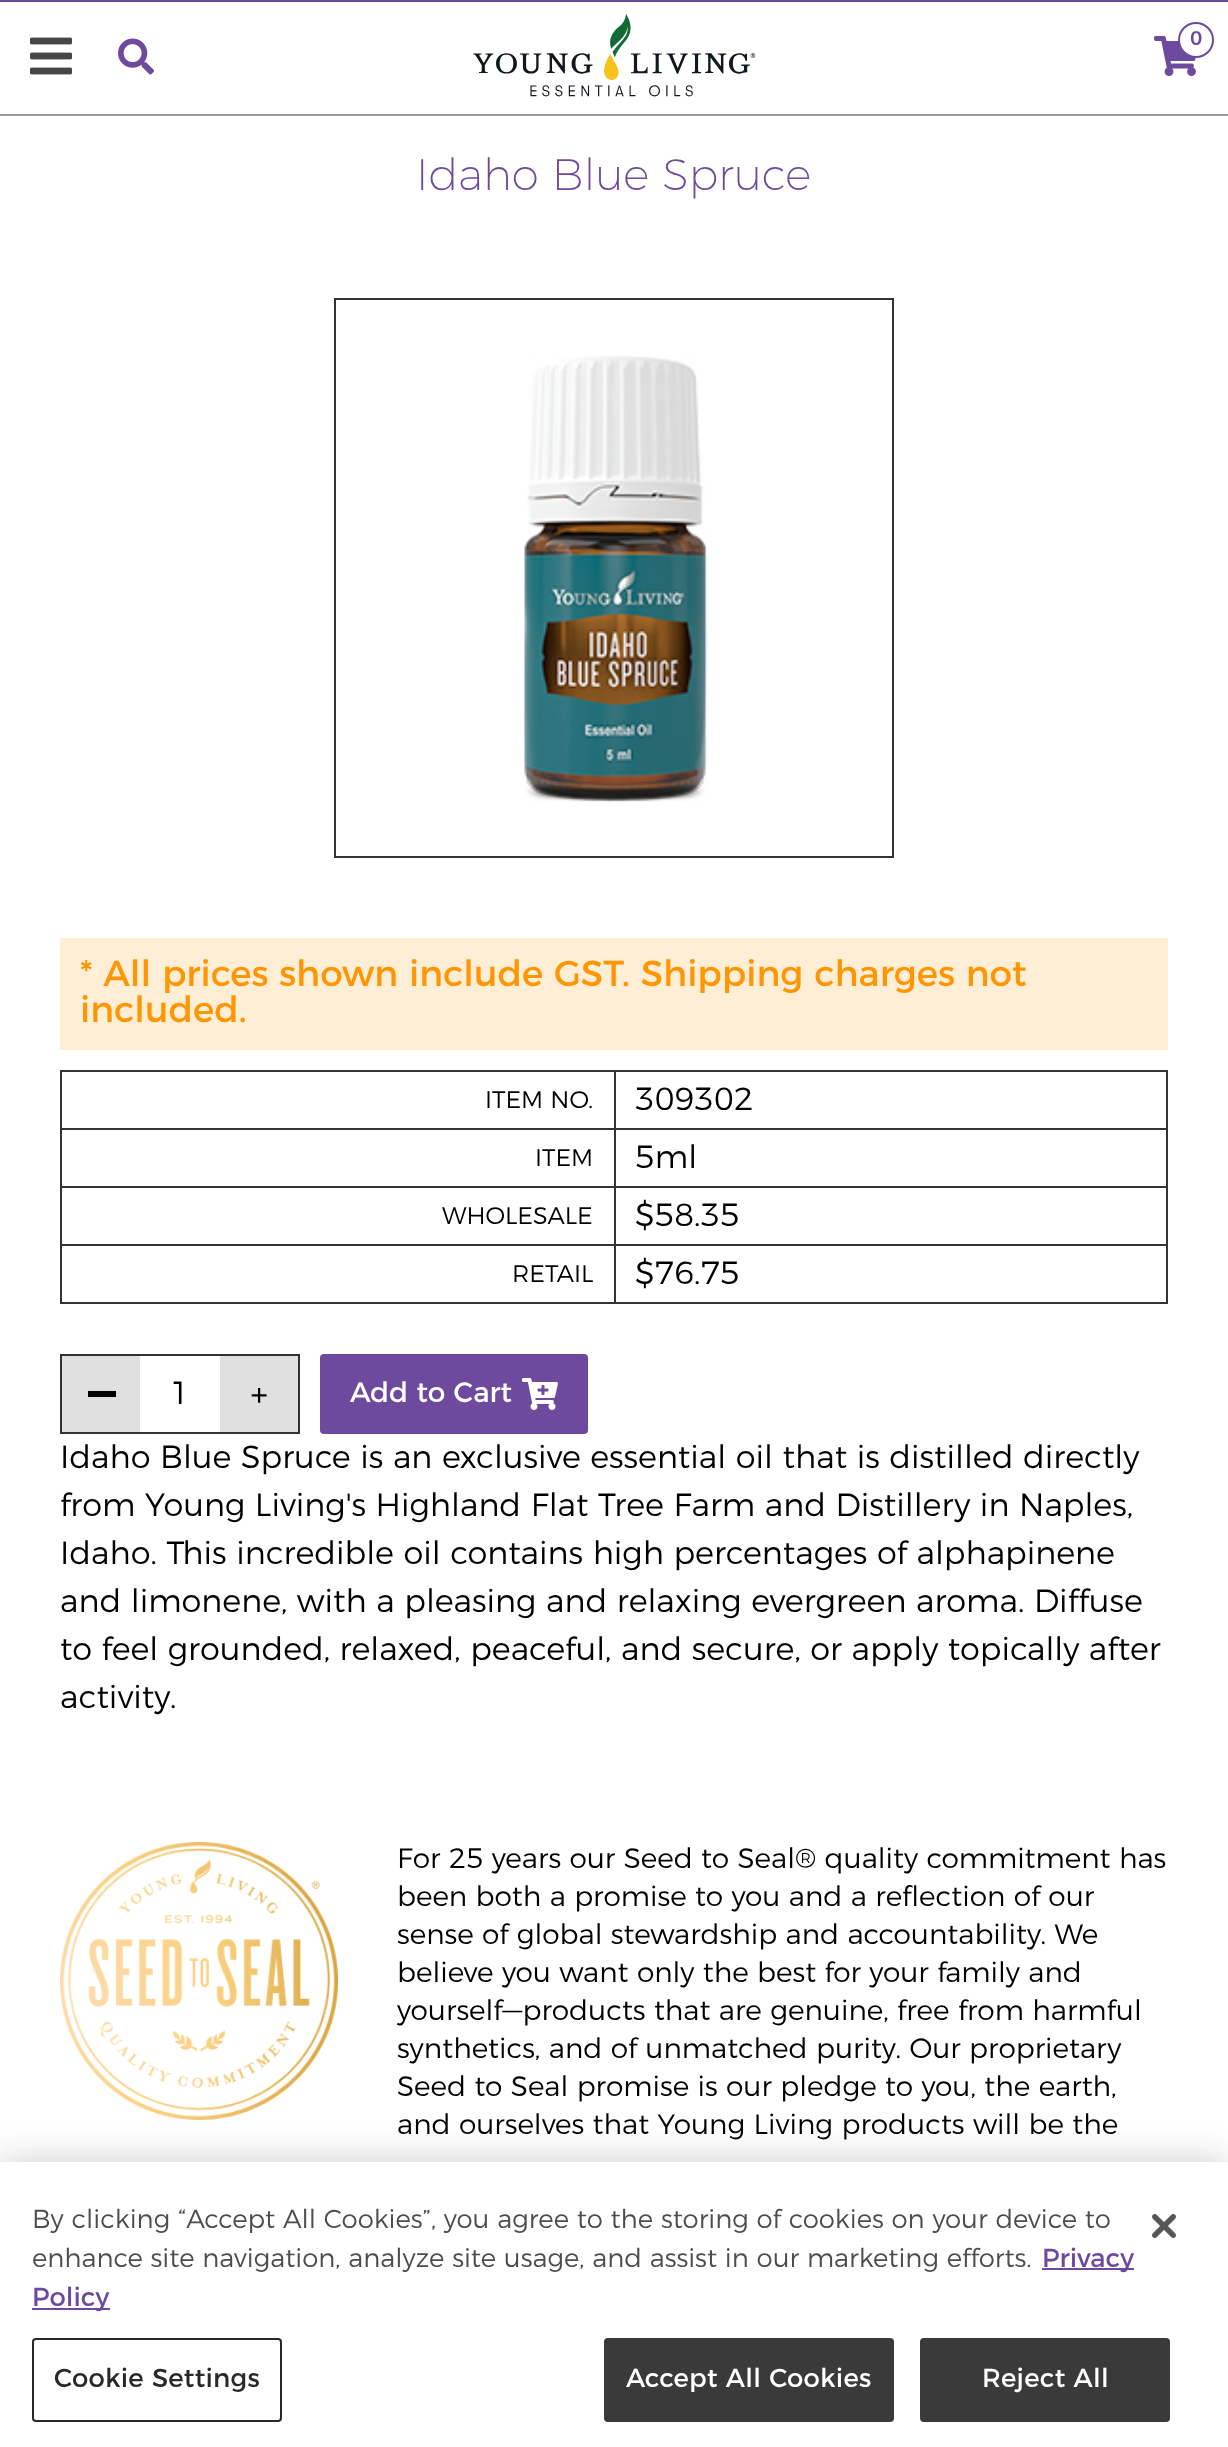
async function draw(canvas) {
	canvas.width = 1228;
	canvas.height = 2447;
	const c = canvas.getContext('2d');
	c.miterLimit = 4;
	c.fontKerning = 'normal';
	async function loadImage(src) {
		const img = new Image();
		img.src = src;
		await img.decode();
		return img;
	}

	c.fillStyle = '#fff';
	c.fillRect(0, 0, 1228, 2447);
	c.fillStyle = '#6e4a9e';
	c.fillRect(0, 0, 1228, 2);
	c.fillStyle = '#999';
	c.fillRect(0, 114, 1228, 2);
	c.drawImage(await loadImage('img1.png'), 30, 37, 42, 38);
	c.drawImage(await loadImage('img2.png'), 118, 38, 36, 37);
	c.drawImage(await loadImage('img3.png'), 473, 14, 283, 83);
	c.drawImage(await loadImage('img4.png'), 1154, 36, 42, 40);
	c.fillStyle = '#fff';
	c.beginPath();
	c.arc(1196, 40, 17, 0, 2 * Math.PI);
	c.fill();
	c.strokeStyle = '#6e4a9e';
	c.lineWidth = 2;
	c.stroke();
	c.font = '500 20px Montserrat';
	c.fillStyle = '#6e4a9e';
	c.fillText('0', 1190, 45);
	c.font = '200 44px Montserrat';
	c.fillText('Idaho Blue Spruce', 416, 190);
	c.strokeStyle = '#333';
	c.strokeRect(335, 299, 558, 558);
	c.drawImage(await loadImage('img5.png'), 523, 355, 185, 448);
	c.fillStyle = '#ffeed6';
	c.fillRect(60, 938, 1108, 112);
	c.font = '36px Montserrat';
	c.fillStyle = '#ff9500';
	c.fillText('* All prices shown include GST. Shipping charges not', 80, 986);
	c.fillText('included.', 80, 1022);
	for (const [x, y, w, h, color] of [
		[60, 1070, 1108, 2, '#333'],
		[1166, 1070, 2, 234, '#333'],
		[60, 1302, 1108, 2, '#333'],
		[60, 1070, 2, 234, '#333'],
		[60, 1128, 1108, 2, '#333'],
	]) {
		c.fillStyle = color;
		c.fillRect(x, y, w, h);
	}
	c.font = '300 24px Montserrat';
	c.fillStyle = '#000';
	c.fillText('ITEM NO.', 485, 1108);
	c.font = '300 32px Montserrat';
	c.fillText('309302', 635, 1110);
	c.fillStyle = '#333';
	c.fillRect(60, 1186, 1108, 2);
	c.font = '300 24px Montserrat';
	c.fillStyle = '#000';
	c.fillText('ITEM', 535, 1166);
	c.font = '300 32px Montserrat';
	c.fillText('5ml', 635, 1168);
	c.fillStyle = '#333';
	c.fillRect(60, 1244, 1108, 2);
	c.font = '300 24px Montserrat';
	c.fillStyle = '#000';
	c.fillText('WHOLESALE', 442, 1224);
	c.font = '300 32px Montserrat';
	c.fillText('$58.35', 635, 1226);
	c.fillStyle = '#333';
	c.fillRect(614, 1070, 2, 234);
	c.font = '300 24px Montserrat';
	c.fillStyle = '#000';
	c.fillText('RETAIL', 512, 1282);
	c.font = '300 32px Montserrat';
	c.fillText('$76.75', 635, 1284);
	for (const [x, y, w, h, color] of [
		[62, 1356, 78, 76, '#e0e0e0'],
		[60, 1354, 240, 2, '#333'],
		[60, 1432, 160, 2, '#333'],
		[60, 1354, 2, 80, '#333'],
		[88, 1391, 28, 6, '#000'],
	]) {
		c.fillStyle = color;
		c.fillRect(x, y, w, h);
	}
	c.fillText('1', 170, 1404);
	for (const [x, y, w, h, color] of [
		[220, 1356, 78, 76, '#e0e0e0'],
		[298, 1354, 2, 80, '#333'],
		[220, 1432, 80, 2, '#333'],
	]) {
		c.fillStyle = color;
		c.fillRect(x, y, w, h);
	}
	c.font = 'bold 32px Liberation Serif';
	c.fillStyle = '#000';
	c.fillText('+', 250, 1406);
	c.fillStyle = '#6e4a9e';
	c.beginPath();
	c.roundRect(320, 1354, 268, 80, 4);
	c.fill();
	c.font = '28px Montserrat';
	c.fillStyle = '#fff';
	c.fillText('Add to Cart', 350, 1402);
	c.drawImage(await loadImage('img6.png'), 522, 1378, 36, 32);
	c.font = '300 32px Montserrat';
	c.fillStyle = '#000';
	for (const [text, x, y] of [
		['Idaho Blue Spruce is an exclusive essential oil that is distilled directly', 60, 1468],
		['from Young Living\'s Highland Flat Tree Farm and Distillery in Naples,', 60, 1516],
		['Idaho. This incredible oil contains high percentages of alphapinene', 60, 1564],
		['and limonene, with a pleasing and relaxing evergreen aroma. Diffuse', 60, 1612],
		['to feel grounded, relaxed, peaceful, and secure, or apply topically after', 60, 1660],
		['activity.', 60, 1708],
	]) {
		c.fillText(text, x, y);
	}
	c.drawImage(await loadImage('img7.png'), 60, 1842, 278, 278);
	c.font = '300 28px Montserrat';
	for (const [text, x, y] of [
		['For 25 years our Seed to Seal® quality commitment has', 397, 1868],
		['been both a promise to you and a reflection of our', 397, 1906],
		['sense of global stewardship and accountability. We', 397, 1944],
		['believe you want only the best for your family and', 397, 1982],
		['yourself—products that are genuine, free from harmful', 397, 2020],
		['synthetics, and of unmatched purity. Our proprietary', 397, 2058],
		['Seed to Seal promise is our pledge to you, the earth,', 397, 2096],
		['and ourselves that Young Living products will be the', 397, 2134],
	]) {
		c.fillText(text, x, y);
	}
	c.fillStyle = '#00000033';
	c.filter = 'blur(18px)';
	c.beginPath();
	c.rect(0, 2162, 1228, 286);
	c.fill();
	c.filter = 'none';
	c.fillStyle = '#fff';
	c.fillRect(0, 2162, 1228, 285);
	c.font = '300 26px Montserrat';
	c.fillStyle = '#4d4d4d';
	c.fillText('By clicking “Accept All Cookies”, you agree to the storing of cookies on your device to', 32, 2228);
	c.fillText('enhance site navigation, analyze site usage, and assist in our marketing efforts.', 32, 2267);
	c.fillStyle = '#6e4a9e';
	c.fillRect(1042, 2268, 92, 2);
	c.font = '26px Montserrat';
	c.fillText('Privacy', 1042, 2267);
	c.fillRect(32, 2308, 78, 2);
	c.fillText('Policy', 32, 2306);
	c.beginPath();
	c.roundRect(33, 2339, 248, 82, 3);
	c.strokeStyle = '#292929';
	c.stroke();
	c.letterSpacing = '0.25px';
	c.fillStyle = '#292929';
	c.fillText('Cookie Settings', 54, 2387);
	c.fillStyle = '#3a3a3a';
	c.beginPath();
	c.roundRect(605, 2339, 288, 82, 3);
	c.fill();
	c.strokeStyle = '#3a3a3a';
	c.stroke();
	c.fillStyle = '#fff';
	c.fillText('Accept All Cookies', 626, 2387);
	c.fillStyle = '#3a3a3a';
	c.beginPath();
	c.roundRect(921, 2339, 248, 82, 3);
	c.fill();
	c.stroke();
	c.fillStyle = '#fff';
	c.fillText('Reject All', 982, 2387);
	c.drawImage(await loadImage('img8.png'), 1152, 2214, 24, 24);
}

draw(document.querySelector('canvas'));
